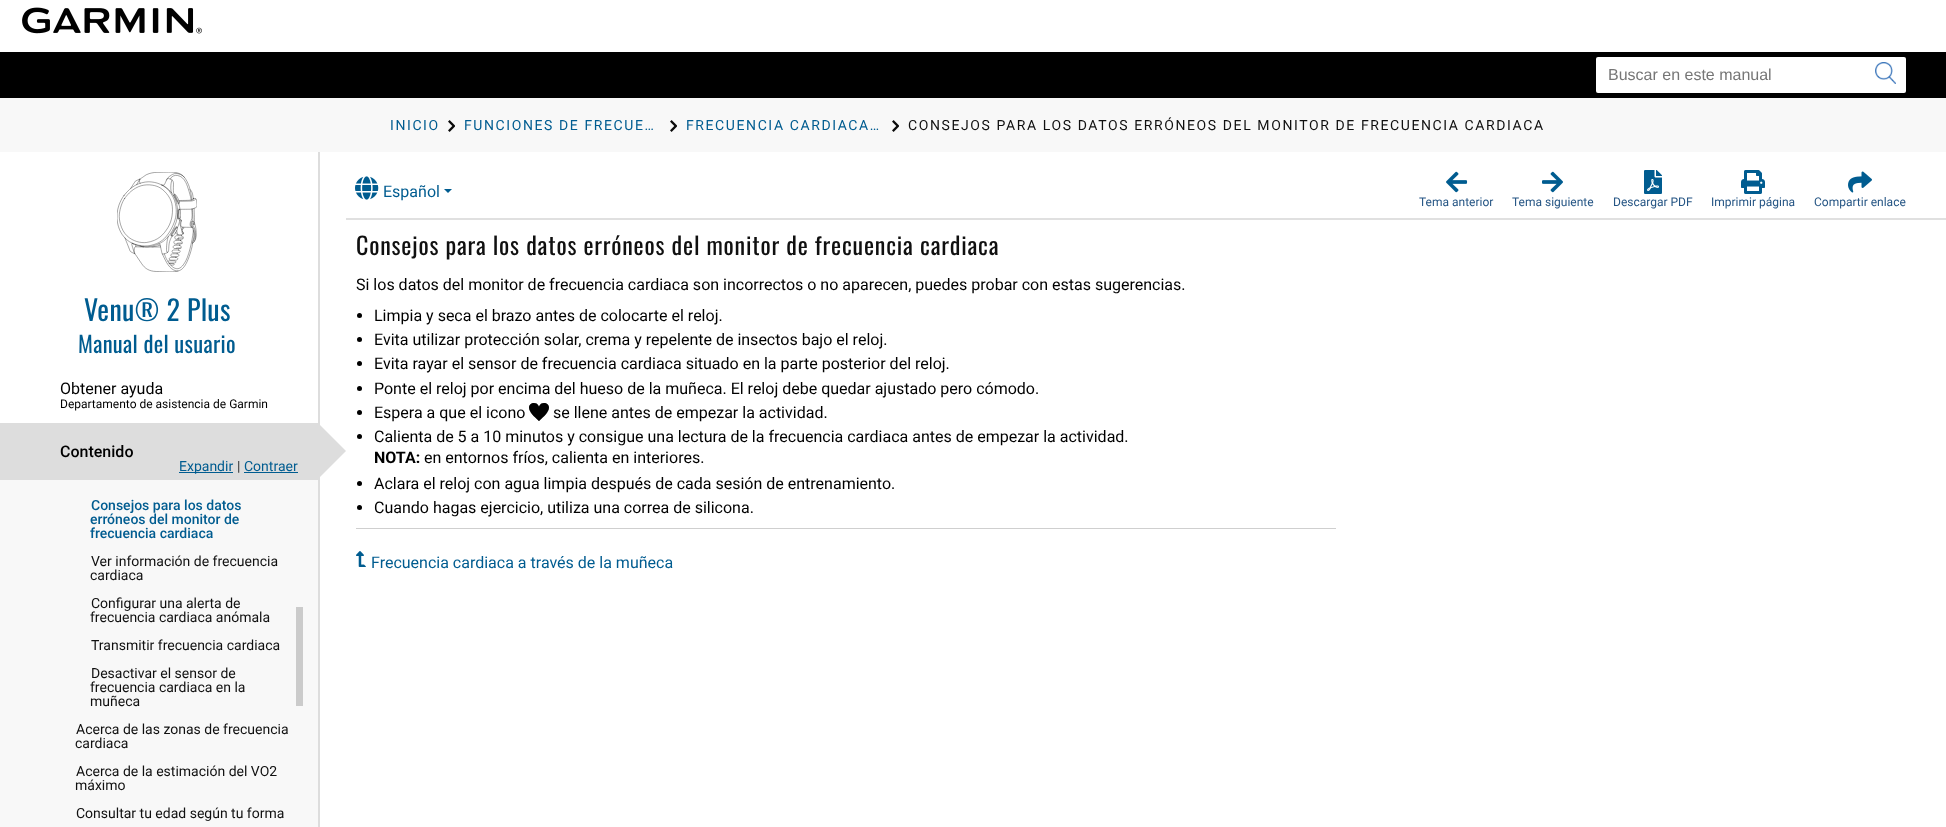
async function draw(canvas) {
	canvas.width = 1946;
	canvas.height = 827;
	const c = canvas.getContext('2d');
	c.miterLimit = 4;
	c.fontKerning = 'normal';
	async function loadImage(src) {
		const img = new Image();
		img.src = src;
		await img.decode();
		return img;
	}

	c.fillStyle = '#fff';
	c.fillRect(0, 0, 1946, 827);
	c.drawImage(await loadImage('img1.png'), 22, 7, 180, 27);
	c.fillStyle = '#000';
	c.fillRect(0, 52, 1946, 46);
	c.fillStyle = '#fff';
	c.beginPath();
	c.roundRect(1596, 57, 310, 36, 2);
	c.fill();
	c.font = '16px Liberation Sans';
	c.fillStyle = '#767676';
	c.fillText('Buscar en este manual', 1608, 80);
	c.drawImage(await loadImage('img2.png'), 1875, 62, 21, 22);
	c.fillStyle = '#f8f8f8';
	c.fillRect(0, 98, 1946, 54);
	c.letterSpacing = '1.6px';
	c.font = '14px Roboto';
	c.fillStyle = '#005c90';
	c.fillText('INICIO', 390, 130);
	c.drawImage(await loadImage('img3.png'), 448, 120, 7, 12);
	c.fillText('FUNCIONES DE FRECUE…', 464, 130);
	c.drawImage(await loadImage('img3.png'), 670, 120, 7, 12);
	c.fillText('FRECUENCIA CARDIACA…', 686, 130);
	c.drawImage(await loadImage('img3.png'), 892, 120, 7, 12);
	c.fillStyle = '#101010';
	c.fillText('CONSEJOS PARA LOS DATOS ERRÓNEOS DEL MONITOR DE FRECUENCIA CARDIACA', 908, 130);
	c.fillStyle = '#ddd';
	c.fillRect(318, 152, 2, 675);
	c.drawImage(await loadImage('img4.png'), 117, 172, 80, 100);
	c.letterSpacing = '0.3px';
	c.font = '28px Oswald';
	c.fillStyle = '#005c90';
	c.fillText('Venu® 2 Plus', 84, 321);
	c.font = '22.5px Oswald';
	c.fillText('Manual del usuario', 78, 353);
	c.letterSpacing = '0px';
	c.font = '16px Roboto';
	c.fillStyle = '#000';
	c.fillText('Obtener ayuda', 60, 394);
	c.font = '12px Roboto';
	c.fillText('Departamento de asistencia de Garmin', 60, 408);
	c.fillStyle = '#ddd';
	c.fillRect(0, 423, 318, 57);
	c.font = '500 16px Roboto';
	c.fillStyle = '#000';
	c.fillText('Contenido', 60, 457);
	c.fillStyle = '#ddd';
	c.beginPath();
	c.moveTo(318, 479);
	c.lineTo(318, 423);
	c.lineTo(346, 451);
	c.closePath();
	c.fill();
	c.fillStyle = '#f8f8f8';
	c.fillRect(0, 480, 318, 347);
	c.fillStyle = '#005c90';
	c.fillRect(179, 472, 54, 1);
	c.font = '14px Roboto';
	c.fillText('Expandir', 179, 471);
	c.fillStyle = '#333';
	c.fillText('|', 237, 471);
	c.fillStyle = '#005c90';
	c.fillText('Contraer', 244, 471);
	c.fillRect(244, 472, 54, 1);
	c.font = '500 14px Roboto';
	for (const [text, x, y] of [
		['Consejos para los datos', 91, 510],
		['erróneos del monitor de', 90, 524],
		['frecuencia cardiaca', 90, 538],
	]) {
		c.fillText(text, x, y);
	}
	c.font = '14px Roboto';
	c.fillStyle = '#101010';
	for (const [text, x, y] of [
		['Ver información de frecuencia', 91, 566],
		['cardiaca', 90, 580],
		['Configurar una alerta de', 91, 608],
		['frecuencia cardiaca anómala', 90, 622],
		['Transmitir frecuencia cardiaca', 91, 650],
		['Desactivar el sensor de', 91, 678],
		['frecuencia cardiaca en la', 90, 692],
		['muñeca', 90, 706],
		['Acerca de las zonas de frecuencia', 76, 734],
		['cardiaca', 75, 748],
		['Acerca de la estimación del VO2', 76, 776],
		['máximo', 75, 790],
		['Consultar tu edad según tu forma', 76, 818],
	]) {
		c.fillText(text, x, y);
	}
	c.fillStyle = '#cbcbcb';
	c.fillRect(296, 607, 7, 99);
	c.fillStyle = '#e0e0e0';
	c.fillRect(346, 218, 1600, 2);
	c.drawImage(await loadImage('img5.png'), 355, 176, 24, 24);
	c.font = '16px Roboto';
	c.fillStyle = '#005c90';
	c.fillText('Español', 383, 197);
	c.beginPath();
	c.moveTo(444, 189);
	c.lineTo(452, 189);
	c.lineTo(448, 193);
	c.closePath();
	c.fill();
	c.drawImage(await loadImage('img6.png'), 1446, 171, 22, 22);
	c.font = '12px Roboto';
	c.fillStyle = '#255584';
	c.fillText('Tema anterior', 1419, 206);
	c.drawImage(await loadImage('img7.png'), 1542, 171, 21, 22);
	c.fillText('Tema siguiente', 1512, 206);
	c.drawImage(await loadImage('img8.png'), 1644, 170, 18, 24);
	c.fillText('Descargar PDF', 1613, 206);
	c.drawImage(await loadImage('img9.png'), 1741, 170, 24, 24);
	c.fillText('Imprimir página', 1711, 206);
	c.drawImage(await loadImage('img10.png'), 1848, 171, 24, 22);
	c.fillText('Compartir enlace', 1814, 206);
	c.letterSpacing = '0.8px';
	c.font = '24px Oswald';
	c.fillStyle = '#101010';
	c.fillText('Consejos para los datos erróneos del monitor de frecuencia cardiaca', 356, 255);
	c.letterSpacing = '0px';
	c.font = '16px Roboto';
	c.fillStyle = '#000';
	c.fillText('Si los datos del monitor de frecuencia cardiaca son incorrectos o no aparecen, puedes probar con estas sugerencias.', 356, 290);
	c.beginPath();
	c.arc(359.5, 315.5, 2.5, 0, 2 * Math.PI);
	c.fill();
	c.fillText('Limpia y seca el brazo antes de colocarte el reloj.', 374, 321);
	c.beginPath();
	c.arc(359.5, 339.5, 2.5, 0, 2 * Math.PI);
	c.fill();
	c.fillText('Evita utilizar protección solar, crema y repelente de insectos bajo el reloj.', 374, 345);
	c.beginPath();
	c.arc(359.5, 363.5, 2.5, 0, 2 * Math.PI);
	c.fill();
	c.fillText('Evita rayar el sensor de frecuencia cardiaca situado en la parte posterior del reloj.', 374, 369);
	c.beginPath();
	c.arc(359.5, 388.5, 2.5, 0, 2 * Math.PI);
	c.fill();
	c.fillText('Ponte el reloj por encima del hueso de la muñeca. El reloj debe quedar ajustado pero cómodo.', 374, 394);
	c.beginPath();
	c.arc(359.5, 412.5, 2.5, 0, 2 * Math.PI);
	c.fill();
	c.fillText('Espera a que el icono', 374, 418);
	c.drawImage(await loadImage('img11.png'), 529, 403, 20, 18);
	c.fillText('se llene antes de empezar la actividad.', 553, 418);
	c.beginPath();
	c.arc(359.5, 436.5, 2.5, 0, 2 * Math.PI);
	c.fill();
	c.fillText('Calienta de 5 a 10 minutos y consigue una lectura de la frecuencia cardiaca antes de empezar la actividad.', 374, 442);
	c.font = 'bold 16px Roboto';
	c.fillText('NOTA:', 374, 463);
	c.font = '16px Roboto';
	c.fillText('en entornos fríos, calienta en interiores.', 424, 463);
	c.beginPath();
	c.arc(359.5, 483.5, 2.5, 0, 2 * Math.PI);
	c.fill();
	c.fillText('Aclara el reloj con agua limpia después de cada sesión de entrenamiento.', 374, 489);
	c.beginPath();
	c.arc(359.5, 507.5, 2.5, 0, 2 * Math.PI);
	c.fill();
	c.fillText('Cuando hagas ejercicio, utiliza una correa de silicona.', 374, 513);
	c.fillStyle = '#cfcfcf';
	c.fillRect(356, 528, 980, 1);
	c.drawImage(await loadImage('img12.png'), 356, 551, 10, 16);
	c.fillStyle = '#005c90';
	c.fillText('Frecuencia cardiaca a través de la muñeca', 371, 568);
}

draw(document.querySelector('canvas'));
